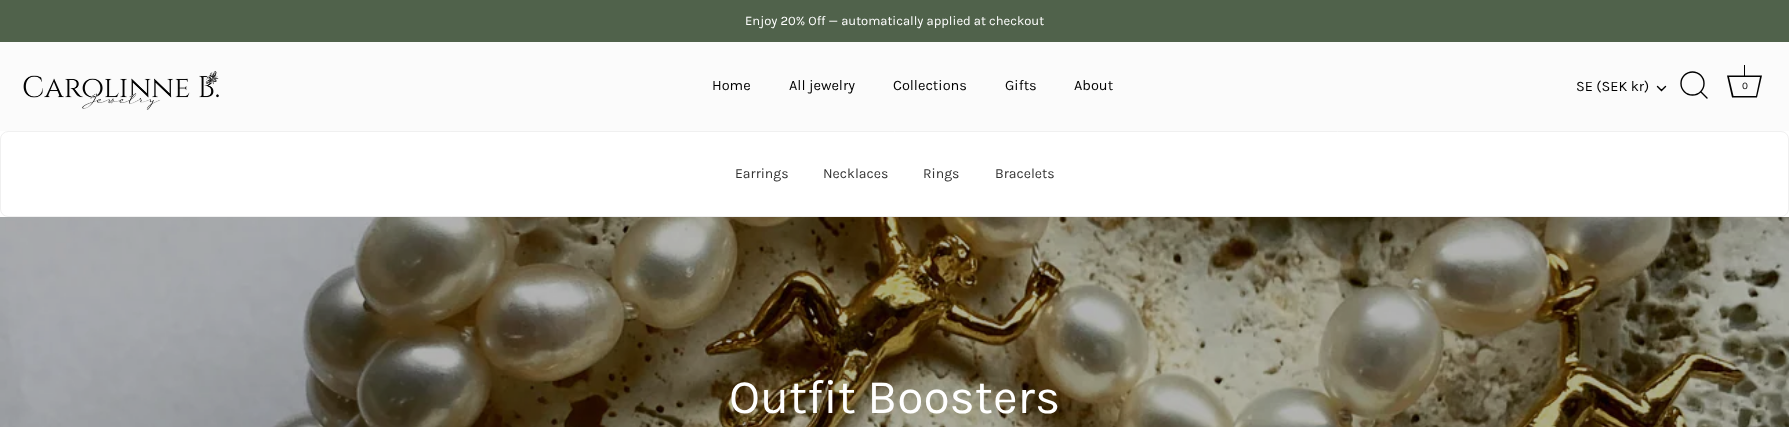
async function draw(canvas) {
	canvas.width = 1789;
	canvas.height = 427;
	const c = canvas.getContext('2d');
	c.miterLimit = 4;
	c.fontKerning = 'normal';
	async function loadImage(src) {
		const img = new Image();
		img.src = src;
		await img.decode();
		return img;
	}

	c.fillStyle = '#fff';
	c.fillRect(0, 0, 1789, 427);
	c.fillStyle = '#fbfbfb';
	c.fillRect(0, 42, 1789, 89);
	c.fillStyle = '#50624b';
	c.fillRect(0, 0, 1789, 42);
	c.font = '13px Karla';
	c.fillStyle = '#fff';
	c.fillText('Enjoy 20% Off — automatically applied at checkout', 745, 25);
	c.drawImage(await loadImage('img1.png'), 23, 71, 196, 39);
	c.font = '14.5px Karla';
	c.fillStyle = '#000';
	for (const [text, x, y] of [
		['Home', 712, 90],
		['All jewelry', 789, 90],
		['Collections', 893, 90],
		['Gifts', 1005, 90],
		['About', 1074, 90],
		['SE (SEK kr)', 1576, 91],
	]) {
		c.fillText(text, x, y);
	}
	c.beginPath();
	c.moveTo(1657.5, 86.5);
	c.lineTo(1661.5, 90.5);
	c.lineTo(1665.5, 86.5);
	c.strokeStyle = '#000';
	c.lineWidth = 1.4;
	c.lineCap = 'round';
	c.stroke();
	c.beginPath();
	c.arc(1692.5, 83.5, 11.5, 0, 2 * Math.PI);
	c.stroke();
	c.beginPath();
	c.moveTo(1707, 98);
	c.lineTo(1701, 92);
	c.lineJoin = 'round';
	c.stroke();
	c.beginPath();
	c.moveTo(1760, 77);
	c.lineTo(1756, 96);
	c.lineTo(1733.5, 96);
	c.lineTo(1729, 77);
	c.lineTo(1760, 77);
	c.moveTo(1762, 75.5);
	c.lineTo(1727, 75.5);
	c.lineTo(1732, 97.5);
	c.lineTo(1757, 97.5);
	c.closePath();
	c.fill();
	c.fillRect(1744, 65, 1, 11);
	c.font = '10px Karla';
	c.fillText('0', 1742, 89);
	c.beginPath();
	c.roundRect(0.5, 131.5, 1788, 85, 7.5);
	c.strokeStyle = '#f0f0f0';
	c.lineWidth = 1;
	c.lineJoin = 'miter';
	c.stroke();
	c.font = '14px Karla';
	c.fillStyle = '#333';
	for (const [text, x, y] of [
		['Earrings', 735, 178],
		['Necklaces', 823, 178],
		['Rings', 923, 178],
		['Bracelets', 995, 178],
	]) {
		c.fillText(text, x, y);
	}
	c.drawImage(await loadImage('img2.png'), 0, 217, 1789, 210);
	c.font = '48px Karla';
	c.fillStyle = '#fff';
	c.fillText('Outfit Boosters', 729, 413);
}

draw(document.querySelector('canvas'));
